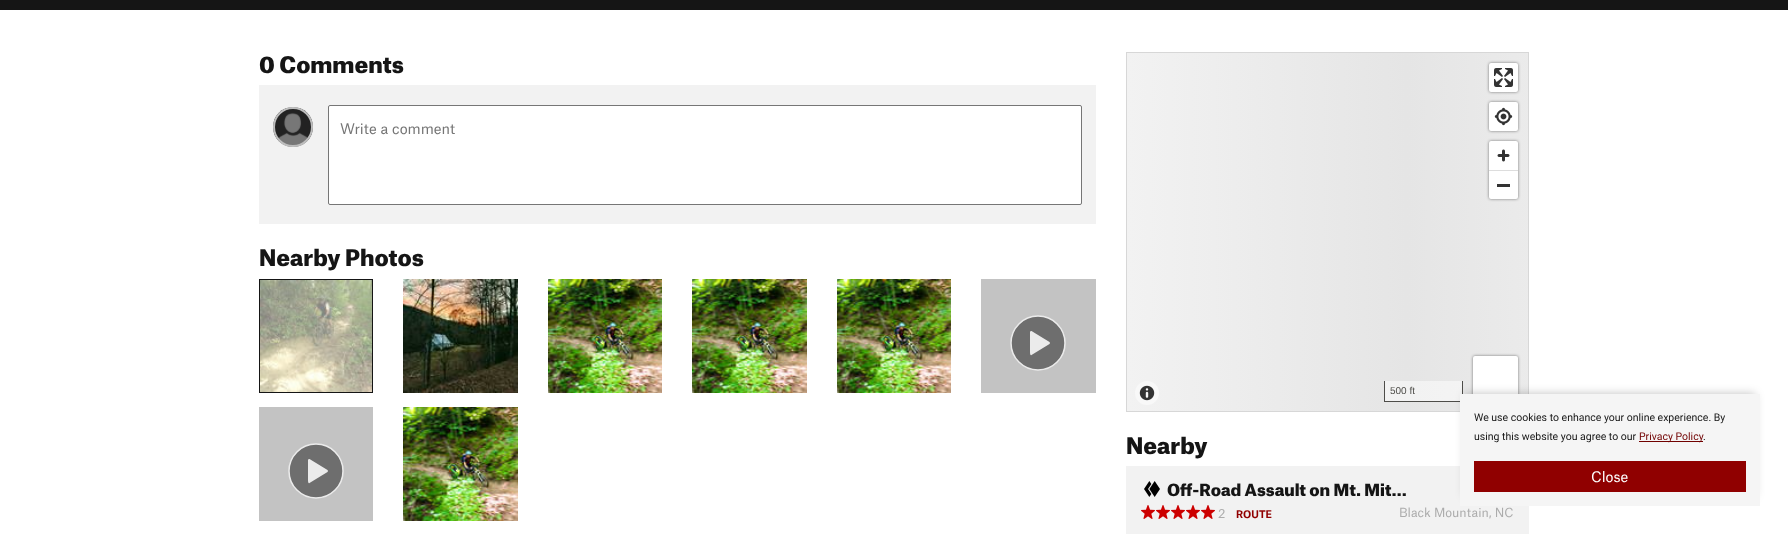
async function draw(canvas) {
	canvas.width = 1788;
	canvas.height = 534;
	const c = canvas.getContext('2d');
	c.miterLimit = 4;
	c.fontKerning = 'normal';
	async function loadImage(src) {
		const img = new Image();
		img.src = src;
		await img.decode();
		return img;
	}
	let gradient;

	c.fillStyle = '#fff';
	c.fillRect(0, 0, 1788, 534);
	c.fillStyle = '#151515';
	c.fillRect(0, 0, 1788, 10);
	c.font = '900 22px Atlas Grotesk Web';
	c.fillText('0 Comments', 259, 73);
	c.fillStyle = '#f2f2f2';
	c.fillRect(259, 85, 837, 139);
	c.drawImage(await loadImage('img1.png'), 273, 107, 40, 40);
	c.beginPath();
	c.arc(293, 127, 19, 0, 2 * Math.PI);
	c.strokeStyle = '#bdbdbd';
	c.lineWidth = 2;
	c.stroke();
	c.fillStyle = '#fff';
	c.beginPath();
	c.roundRect(328.5, 105.5, 753, 99, 1.5);
	c.fill();
	c.strokeStyle = '#767676';
	c.lineWidth = 1;
	c.stroke();
	c.font = '14px Atlas Grotesk Web';
	c.fillStyle = '#757575';
	c.fillText('Write a comment', 340, 134);
	c.font = '900 22px Atlas Grotesk Web';
	c.fillStyle = '#151515';
	c.fillText('Nearby Photos', 259, 266);
	c.strokeStyle = '#151515';
	c.strokeRect(259.5, 279.5, 113, 113);
	c.drawImage(await loadImage('img2.png'), 260, 280, 112, 112);
	c.drawImage(await loadImage('img3.png'), 403, 279, 115, 114);
	c.drawImage(await loadImage('img4.png'), 548, 279, 114, 114);
	c.drawImage(await loadImage('img5.png'), 692, 279, 115, 114);
	c.drawImage(await loadImage('img6.png'), 837, 279, 114, 114);
	c.fillStyle = '#c3c3c3';
	c.fillRect(981, 279, 115, 114);
	c.fillStyle = '#6e6e6e';
	c.beginPath();
	c.arc(1038, 343, 27, 0, 2 * Math.PI);
	c.fill();
	c.strokeStyle = '#ebebeb';
	c.lineWidth = 1.5;
	c.stroke();
	c.fillStyle = '#ebebeb';
	c.beginPath();
	c.moveTo(1050, 343);
	c.lineTo(1049.5, 342);
	c.lineTo(1031.5, 331);
	c.bezierCurveTo(1031, 331, 1030, 331, 1030, 332);
	c.lineTo(1030, 350.5);
	c.bezierCurveTo(1030, 353, 1030, 356, 1031.5, 355);
	c.lineTo(1049.5, 344);
	c.lineTo(1050, 343);
	c.fill('evenodd');
	c.fillStyle = '#c3c3c3';
	c.fillRect(259, 407, 114, 114);
	c.fillStyle = '#6e6e6e';
	c.beginPath();
	c.arc(316, 471, 27, 0, 2 * Math.PI);
	c.fill();
	c.stroke();
	c.fillStyle = '#ebebeb';
	c.beginPath();
	c.moveTo(328, 471);
	c.lineTo(327.5, 470);
	c.lineTo(309.5, 459);
	c.bezierCurveTo(309, 459, 308, 459, 308, 460);
	c.lineTo(308, 478.5);
	c.bezierCurveTo(308, 481, 308, 484, 309.5, 483);
	c.lineTo(327.5, 472);
	c.lineTo(328, 471);
	c.fill('evenodd');
	c.drawImage(await loadImage('img5.png'), 403, 407, 115, 114);
	gradient = c.createLinearGradient(1127, 232, 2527, 232);
	gradient.addColorStop(0, '#f2f2f2');
	gradient.addColorStop(0.2, '#e5e5e5');
	gradient.addColorStop(0.4, '#f2f2f2');
	gradient.addColorStop(1, '#f2f2f2');
	c.fillStyle = gradient;
	c.fillRect(1127, 53, 401, 358);
	gradient = c.createLinearGradient(1127, 232, 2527, 232);
	gradient.addColorStop(0, '#f9f9f9');
	gradient.addColorStop(0.2, '#f2f2f2');
	gradient.addColorStop(0.4, '#f9f9f9');
	gradient.addColorStop(1, '#f9f9f9');
	c.fillStyle = gradient;
	c.fillRect(1385, 381, 77, 20);
	c.strokeStyle = '#d7d7d7';
	c.lineWidth = 1;
	c.strokeRect(1126.5, 52.5, 402, 359);
	c.fillStyle = '#f8f8f8';
	c.beginPath();
	c.arc(1147, 393, 12, 0, 2 * Math.PI);
	c.fill();
	c.drawImage(await loadImage('img7.png'), 1139, 385, 16, 16);
	c.fillStyle = '#00000080';
	c.filter = 'blur(1.5px)';
	c.beginPath();
	c.roundRect(1489, 63, 29, 29, 2);
	c.fill();
	c.filter = 'none';
	c.fillStyle = '#fff';
	c.beginPath();
	c.roundRect(1489, 63, 29, 29, 2);
	c.fill();
	c.drawImage(await loadImage('img8.png'), 1494, 68, 19, 19);
	c.fillStyle = '#00000080';
	c.filter = 'blur(1.5px)';
	c.beginPath();
	c.roundRect(1489, 102, 29, 29, 2);
	c.fill();
	c.filter = 'none';
	c.fillStyle = '#fff';
	c.beginPath();
	c.roundRect(1489, 102, 29, 29, 2);
	c.fill();
	c.drawImage(await loadImage('img9.png'), 1494, 107, 19, 19);
	c.fillStyle = '#00000080';
	c.filter = 'blur(1.5px)';
	c.beginPath();
	c.roundRect(1489, 141, 29, 58, 2);
	c.fill();
	c.filter = 'none';
	c.fillStyle = '#fff';
	c.beginPath();
	c.roundRect(1489, 141, 29, 58, 2);
	c.fill();
	c.drawImage(await loadImage('img10.png'), 1497, 149, 13, 13);
	for (const [x, y, w, h, color] of [
		[1489, 170, 29, 1, '#ddd'],
		[1497, 184, 13, 3, '#333'],
		[1462, 381, 1, 21, '#4e4d49'],
		[1384, 401, 79, 1, '#4e4d49'],
		[1384, 381, 1, 21, '#4e4d49'],
	]) {
		c.fillStyle = color;
		c.fillRect(x, y, w, h);
	}
	c.font = '10px Liberation Sans';
	c.fillText('500 ft', 1390, 394);
	c.fillStyle = '#00000080';
	c.filter = 'blur(1.5px)';
	c.beginPath();
	c.roundRect(1473, 356, 45, 45, 2);
	c.fill();
	c.filter = 'none';
	c.fillStyle = '#fff';
	c.beginPath();
	c.roundRect(1473, 356, 45, 45, 2);
	c.fill();
	c.font = '900 22px Atlas Grotesk Web';
	c.fillStyle = '#151515';
	c.fillText('Nearby', 1126, 454);
	c.fillStyle = '#f2f2f2';
	c.fillRect(1126, 466, 403, 68);
	c.drawImage(await loadImage('img11.png'), 1144, 481, 16, 16);
	c.font = '900 16px Atlas Grotesk Web';
	c.fillStyle = '#151515';
	c.fillText('Off-Road Assault on Mt. Mit…', 1167, 496);
	c.drawImage(await loadImage('img12.png'), 1141, 505, 14, 14);
	c.drawImage(await loadImage('img12.png'), 1156, 505, 14, 14);
	c.drawImage(await loadImage('img12.png'), 1171, 505, 14, 14);
	c.drawImage(await loadImage('img12.png'), 1186, 505, 14, 14);
	c.drawImage(await loadImage('img12.png'), 1201, 505, 14, 14);
	c.font = '12px Atlas Grotesk Web';
	c.fillStyle = '#acacac';
	c.fillText('2', 1218, 518);
	c.font = 'bold 10px Atlas Grotesk Web';
	c.fillStyle = '#900000';
	c.fillText('ROUTE', 1236, 518);
	c.font = '12px Atlas Grotesk Web';
	c.fillStyle = '#acacac';
	c.fillText('Black Mountain, NC', 1399, 517);
	c.fillStyle = '#00000040';
	c.filter = 'blur(5px)';
	c.beginPath();
	c.rect(1465, 394, 290, 102);
	c.fill();
	c.filter = 'none';
	c.fillStyle = '#f5f5f5';
	c.fillRect(1460, 394, 300, 112);
	c.font = '10.5px Roboto';
	c.fillStyle = '#151515';
	c.fillText('We use cookies to enhance your online experience. By', 1474, 421);
	c.fillText('using this website you agree to our', 1474, 440);
	c.fillStyle = '#710100';
	c.fillRect(1639, 441, 64, 1);
	c.fillText('Privacy Policy', 1639, 440);
	c.fillStyle = '#151515';
	c.fillText('.', 1703, 440);
	c.fillStyle = '#900000';
	c.fillRect(1474, 461, 272, 31);
	c.font = '14px Atlas Grotesk Web';
	c.fillStyle = '#fff';
	c.fillText('Close', 1591, 482);
}

draw(document.querySelector('canvas'));
